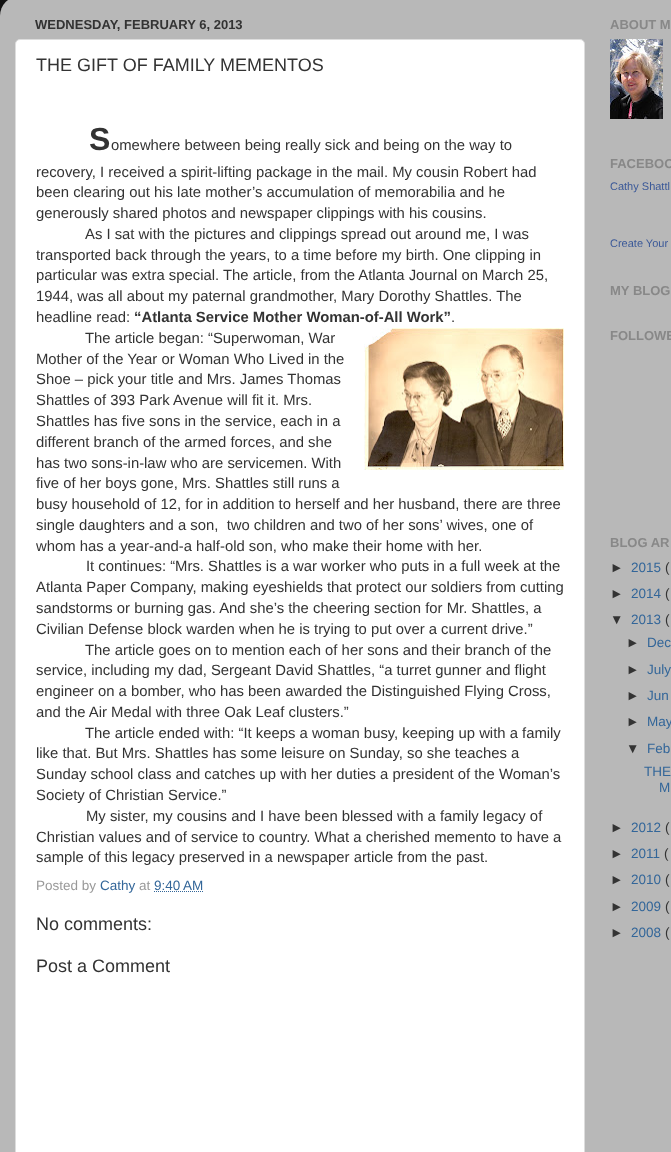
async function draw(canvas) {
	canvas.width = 671;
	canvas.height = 1152;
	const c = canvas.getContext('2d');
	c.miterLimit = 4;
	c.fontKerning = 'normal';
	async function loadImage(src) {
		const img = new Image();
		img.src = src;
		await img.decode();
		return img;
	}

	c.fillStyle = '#111';
	c.fillRect(0, 0, 671, 1152);
	c.drawImage(await loadImage('img1.png'), 0, 0, 671, 1152);
	c.font = 'bold 13px Liberation Sans';
	c.fillStyle = '#333';
	c.fillText('WEDNESDAY, FEBRUARY 6, 2013', 35, 29);
	c.fillStyle = '#fff';
	c.beginPath();
	c.roundRect(15.5, 39.5, 569, 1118, 4.5);
	c.fill();
	c.strokeStyle = '#ddd';
	c.stroke();
	c.font = '18px Liberation Sans';
	c.fillStyle = '#333';
	c.fillText('THE GIFT OF FAMILY MEMENTOS', 36, 71);
	c.font = 'bold 32px Liberation Sans';
	c.fillText('S', 89, 150);
	c.font = '14.85px Liberation Sans';
	for (const [text, x, y] of [
		['omewhere between being really sick and being on the way to', 111, 150],
		['recovery, I received a spirit-lifting package in the mail. My cousin Robert had', 36, 177],
		['been clearing out his late mother’s accumulation of memorabilia and he', 36, 197],
		['generously shared photos and newspaper clippings with his cousins.', 36, 218],
		['As I sat with the pictures and clippings spread out around me, I was', 85, 239],
		['transported back through the years, to a time before my birth. One clipping in', 36, 260],
		['particular was extra special. The article, from the Atlanta Journal on March 25,', 36, 280],
		['1944, was all about my paternal grandmother, Mary Dorothy Shattles. The', 36, 301],
		['headline read:', 36, 322],
	]) {
		c.fillText(text, x, y);
	}
	c.font = 'bold 14.85px Liberation Sans';
	c.fillText('“Atlanta Service Mother Woman-of-All Work”', 134, 322);
	c.font = '14.85px Liberation Sans';
	c.fillText('.', 451, 322);
	c.drawImage(await loadImage('img2.png'), 364, 328, 200, 142);
	for (const [text, x, y] of [
		['The article began: “Superwoman, War', 85, 343],
		['Mother of the Year or Woman Who Lived in the', 36, 364],
		['Shoe – pick your title and Mrs. James Thomas', 36, 384],
		['Shattles of 393 Park Avenue will fit it. Mrs.', 36, 405],
		['Shattles has five sons in the service, each in a', 36, 426],
		['different branch of the armed forces, and she', 36, 447],
		['has two sons-in-law who are servicemen. With', 36, 468],
		['five of her boys gone, Mrs. Shattles still runs a', 36, 488],
		['busy household of 12, for in addition to herself and her husband, there are three', 36, 509],
		['single daughters and a son,  two children and two of her sons’ wives, one of', 36, 530],
		['whom has a year-and-a half-old son, who make their home with her.', 36, 551],
		['It continues: “Mrs. Shattles is a war worker who puts in a full week at the', 86, 571],
		['Atlanta Paper Company, making eyeshields that protect our soldiers from cutting', 36, 592],
		['sandstorms or burning gas. And she’s the cheering section for Mr. Shattles, a', 36, 613],
		['Civilian Defense block warden when he is trying to put over a current drive.”', 36, 634],
		['The article goes on to mention each of her sons and their branch of the', 85, 655],
		['service, including my dad, Sergeant David Shattles, “a turret gunner and flight', 36, 675],
		['engineer on a bomber, who has been awarded the Distinguished Flying Cross,', 36, 696],
		['and the Air Medal with three Oak Leaf clusters.”', 36, 717],
		['The article ended with: “It keeps a woman busy, keeping up with a family', 85, 738],
		['like that. But Mrs. Shattles has some leisure on Sunday, so she teaches a', 36, 758],
		['Sunday school class and catches up with her duties a president of the Woman’s', 36, 779],
		['Society of Christian Service.”', 36, 800],
		['My sister, my cousins and I have been blessed with a family legacy of', 86, 821],
		['Christian values and of service to country. What a cherished memento to have a', 36, 842],
		['sample of this legacy preserved in a newspaper article from the past.', 36, 862],
	]) {
		c.fillText(text, x, y);
	}
	c.font = '13.5px Liberation Sans';
	c.fillStyle = '#999';
	c.fillText('Posted by', 36, 890);
	c.fillStyle = '#369';
	c.fillText('Cathy', 100, 890);
	c.fillStyle = '#999';
	c.fillText('at', 139, 890);
	c.fillStyle = '#369';
	c.fillText('9:40 AM', 154, 890);
	c.beginPath();
	c.moveTo(154, 891.5);
	c.lineTo(203, 891.5);
	c.strokeStyle = '#369';
	c.setLineDash([1, 1]);
	c.stroke();
	c.font = '18px Liberation Sans';
	c.fillStyle = '#333';
	c.fillText('No comments:', 36, 930);
	c.fillText('Post a Comment', 36, 972);
	c.font = 'bold 13px Liberation Sans';
	c.fillStyle = '#888';
	c.fillText('ABOUT M', 610, 29);
	c.drawImage(await loadImage('img3.png'), 610, 39, 53, 80);
	c.fillText('FACEBOO', 610, 168);
	c.font = '11px Liberation Sans';
	c.fillStyle = '#3b5998';
	c.fillText('Cathy Shattl', 610, 190);
	c.fillText('Create Your', 610, 247);
	c.font = 'bold 13px Liberation Sans';
	c.fillStyle = '#888';
	for (const [text, x, y] of [
		['MY BLOG', 610, 295],
		['FOLLOWE', 610, 340],
		['BLOG AR', 610, 547],
	]) {
		c.fillText(text, x, y);
	}
	c.font = '13.5px Liberation Sans';
	c.fillStyle = '#333';
	c.fillText('►', 610, 572);
	c.fillStyle = '#369';
	c.fillText('2015', 631, 572);
	c.fillStyle = '#333';
	c.fillText('(', 665, 572);
	c.fillText('►', 610, 598);
	c.fillStyle = '#369';
	c.fillText('2014', 631, 598);
	c.fillStyle = '#333';
	c.fillText('(', 665, 598);
	c.fillText('▼', 610, 624);
	c.fillStyle = '#369';
	c.fillText('2013', 631, 624);
	c.fillStyle = '#333';
	c.fillText('(', 665, 624);
	c.fillText('►', 626, 647);
	c.fillStyle = '#369';
	c.fillText('Dec', 647, 647);
	c.fillStyle = '#333';
	c.fillText('►', 626, 674);
	c.fillStyle = '#369';
	c.fillText('July', 647, 674);
	c.fillStyle = '#333';
	c.fillText('►', 626, 700);
	c.fillStyle = '#369';
	c.fillText('Jun', 647, 700);
	c.fillStyle = '#333';
	c.fillText('►', 626, 726);
	c.fillStyle = '#369';
	c.fillText('May', 647, 726);
	c.fillStyle = '#333';
	c.fillText('▼', 626, 753);
	c.fillStyle = '#369';
	for (const [text, x, y] of [
		['Feb', 647, 753],
		['THE', 644, 776],
		['M', 659, 792],
	]) {
		c.fillText(text, x, y);
	}
	c.fillStyle = '#333';
	c.fillText('►', 610, 832);
	c.fillStyle = '#369';
	c.fillText('2012', 631, 832);
	c.fillStyle = '#333';
	c.fillText('(', 665, 832);
	c.fillText('►', 610, 858);
	c.fillStyle = '#369';
	c.fillText('2011', 631, 858);
	c.fillStyle = '#333';
	c.fillText('(', 664, 858);
	c.fillText('►', 610, 884);
	c.fillStyle = '#369';
	c.fillText('2010', 631, 884);
	c.fillStyle = '#333';
	c.fillText('(', 665, 884);
	c.fillText('►', 610, 911);
	c.fillStyle = '#369';
	c.fillText('2009', 631, 911);
	c.fillStyle = '#333';
	c.fillText('(', 665, 911);
	c.fillText('►', 610, 937);
	c.fillStyle = '#369';
	c.fillText('2008', 631, 937);
	c.fillStyle = '#333';
	c.fillText('(', 665, 937);
}

draw(document.querySelector('canvas'));
